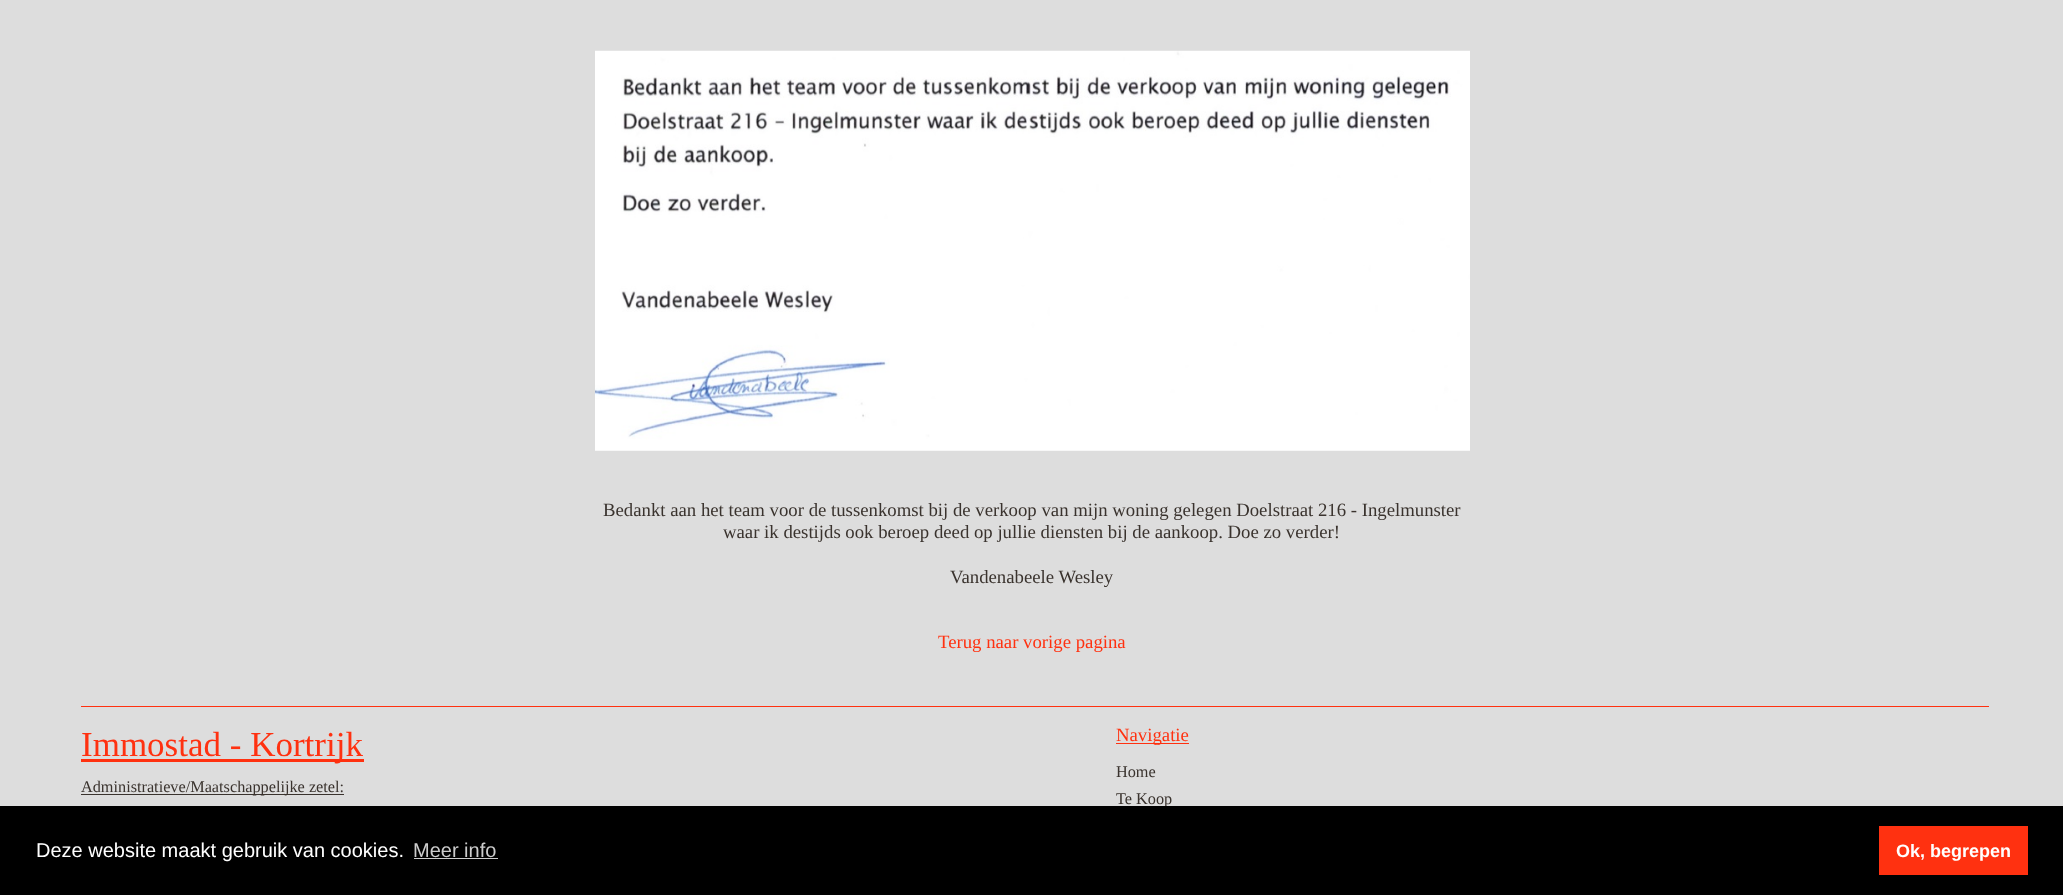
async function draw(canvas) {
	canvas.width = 2063;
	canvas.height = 895;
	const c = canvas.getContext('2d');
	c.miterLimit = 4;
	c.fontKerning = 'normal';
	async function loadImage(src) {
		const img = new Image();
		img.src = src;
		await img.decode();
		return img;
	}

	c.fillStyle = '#ddd';
	c.fillRect(0, 0, 2063, 895);
	c.drawImage(await loadImage('img1.png'), 595, 50, 875, 401);
	c.font = '18.75px Liberation Serif';
	c.fillStyle = '#3a332e';
	for (const [text, x, y] of [
		['Bedankt aan het team voor de tussenkomst bij de verkoop van mijn woning gelegen Doelstraat 216 - Ingelmunster', 603, 516],
		['waar ik destijds ook beroep deed op jullie diensten bij de aankoop. Doe zo verder!', 723, 538],
		['Vandenabeele Wesley', 950, 583],
	]) {
		c.fillText(text, x, y);
	}
	c.fillStyle = '#ff3110';
	c.fillText('Terug naar vorige pagina', 938, 648);
	c.fillRect(81, 706, 1908, 1);
	c.fillRect(81, 759, 283, 3);
	c.font = '35px Liberation Serif';
	c.fillText('Immostad - Kortrijk', 81, 756);
	c.fillStyle = '#3a332e';
	c.fillRect(81, 794, 263, 1);
	c.font = '16.25px Liberation Serif';
	c.fillText('Administratieve/Maatschappelijke zetel:', 81, 792);
	c.fillStyle = '#ff3110';
	c.fillRect(1116, 743, 73, 1);
	c.font = '18.75px Liberation Serif';
	c.fillText('Navigatie', 1116, 741);
	c.font = '16.25px Liberation Serif';
	c.fillStyle = '#3a332e';
	c.fillText('Home', 1116, 777);
	c.fillText('Te Koop', 1116, 804);
	c.fillStyle = '#000';
	c.fillRect(0, 806, 2063, 89);
	c.font = '20px Liberation Sans';
	c.fillStyle = '#fff';
	c.fillText('Deze website maakt gebruik van cookies.', 36, 857);
	c.fillStyle = '#ccc';
	c.fillText('Meer info', 413, 857);
	c.fillRect(414, 858, 84, 1);
	c.fillStyle = '#ff3110';
	c.fillRect(1879, 826, 149, 49);
	c.font = 'bold 18px Liberation Sans';
	c.fillStyle = '#fff';
	c.fillText('Ok, begrepen', 1896, 857);
}

draw(document.querySelector('canvas'));
